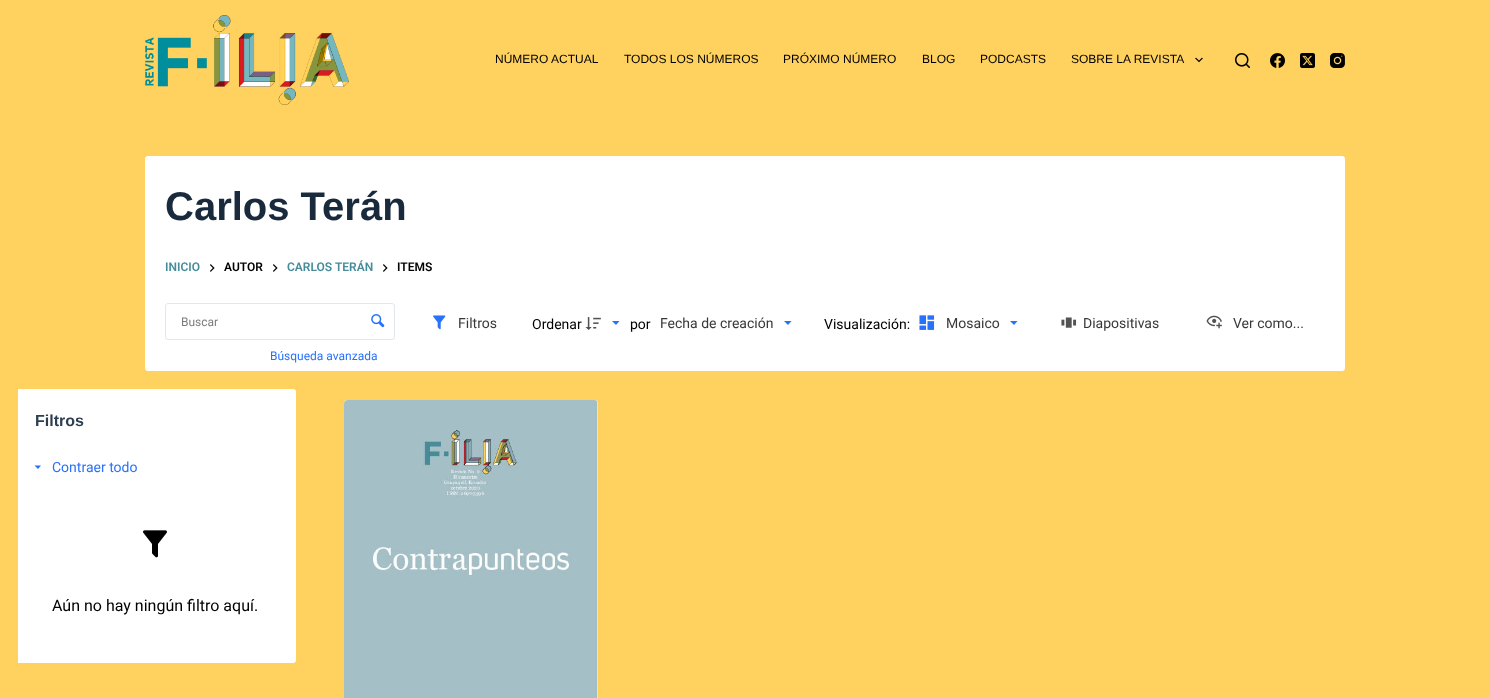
async function draw(canvas) {
	canvas.width = 1490;
	canvas.height = 698;
	const c = canvas.getContext('2d');
	c.miterLimit = 4;
	c.fontKerning = 'normal';
	async function loadImage(src) {
		const img = new Image();
		img.src = src;
		await img.decode();
		return img;
	}

	c.fillStyle = '#ffd15f';
	c.fillRect(0, 0, 1490, 698);
	c.drawImage(await loadImage('img1.png'), 145, 15, 204, 90);
	c.font = '12px Liberation Sans';
	c.fillStyle = '#000';
	for (const [text, x, y] of [
		['NÚMERO ACTUAL', 495, 63],
		['TODOS LOS NÚMEROS', 624, 63],
		['PRÓXIMO NÚMERO', 783, 63],
		['BLOG', 922, 63],
		['PODCASTS', 980, 63],
		['SOBRE LA REVISTA', 1071, 63],
	]) {
		c.fillText(text, x, y);
	}
	c.drawImage(await loadImage('img2.png'), 1195, 57, 8, 6);
	c.drawImage(await loadImage('img3.png'), 1235, 53, 15, 15);
	c.drawImage(await loadImage('img4.png'), 1270, 53, 15, 15);
	c.drawImage(await loadImage('img5.png'), 1300, 53, 15, 15);
	c.drawImage(await loadImage('img6.png'), 1330, 53, 15, 15);
	c.fillStyle = '#fff';
	c.beginPath();
	c.roundRect(145, 156, 1200, 142, [3, 3, 0, 0]);
	c.fill();
	c.font = 'bold 40px Liberation Sans';
	c.fillStyle = '#192a3d';
	c.fillText('Carlos Terán', 165, 220);
	c.font = '600 12px Roboto';
	c.fillStyle = '#478c99';
	c.fillText('INICIO', 165, 271);
	c.drawImage(await loadImage('img7.png'), 210, 264, 5, 8);
	c.fillStyle = '#000';
	c.fillText('AUTOR', 224, 271);
	c.drawImage(await loadImage('img7.png'), 273, 264, 5, 8);
	c.fillStyle = '#478c99';
	c.fillText('CARLOS TERÁN', 287, 271);
	c.drawImage(await loadImage('img7.png'), 383, 264, 5, 8);
	c.fillStyle = '#000';
	c.fillText('ITEMS', 397, 271);
	c.fillStyle = '#fff';
	c.beginPath();
	c.roundRect(145, 285, 1200, 86, [0, 0, 3, 3]);
	c.fill();
	c.beginPath();
	c.roundRect(165.5, 303.5, 229, 36, 2.5);
	c.strokeStyle = '#e1e8ed';
	c.stroke();
	c.font = '12px Roboto';
	c.fillStyle = '#7c7d7e';
	c.fillText('Buscar', 181, 326);
	c.drawImage(await loadImage('img8.png'), 371, 314, 14, 14);
	c.fillStyle = '#2872fa';
	c.fillText('Búsqueda avanzada', 270, 360);
	c.drawImage(await loadImage('img9.png'), 433, 315, 13, 15);
	c.font = '14px Roboto';
	c.fillStyle = '#373839';
	c.fillText('Filtros', 458, 328);
	c.fillStyle = '#000';
	c.fillText('Ordenar', 532, 329);
	c.drawImage(await loadImage('img10.png'), 585, 317, 16, 13);
	c.fillStyle = '#2872fa';
	c.beginPath();
	c.moveTo(612, 321);
	c.lineTo(616, 325);
	c.lineTo(619.5, 321);
	c.closePath();
	c.fill();
	c.fillStyle = '#000';
	c.fillText('por', 630, 329);
	c.fillStyle = '#373839';
	c.fillText('Fecha de creación', 660, 328);
	c.fillStyle = '#2872fa';
	c.beginPath();
	c.moveTo(784, 321);
	c.lineTo(788, 325);
	c.lineTo(791.5, 321);
	c.closePath();
	c.fill();
	c.fillStyle = '#000';
	c.fillText('Visualización:', 824, 329);
	c.drawImage(await loadImage('img11.png'), 919, 315, 16, 15);
	c.fillStyle = '#373839';
	c.fillText('Mosaico', 946, 328);
	c.fillStyle = '#2872fa';
	c.beginPath();
	c.moveTo(1010, 321);
	c.lineTo(1014, 325);
	c.lineTo(1017.5, 321);
	c.closePath();
	c.fill();
	c.drawImage(await loadImage('img12.png'), 1061, 317, 16, 11);
	c.fillStyle = '#373839';
	c.fillText('Diapositivas', 1083, 328);
	c.drawImage(await loadImage('img13.png'), 1206, 315, 16, 14);
	c.fillText('Ver como...', 1233, 328);
	c.fillStyle = '#fff';
	c.beginPath();
	c.roundRect(18, 389, 278, 274, [0, 3, 3, 0]);
	c.fill();
	c.font = 'bold 16px Liberation Sans';
	c.fillStyle = '#2c3e50';
	c.fillText('Filtros', 35, 426);
	c.fillStyle = '#2872fa';
	c.beginPath();
	c.moveTo(34.5, 465.5);
	c.lineTo(38, 469);
	c.lineTo(41, 465.5);
	c.closePath();
	c.fill();
	c.font = '14px Roboto';
	c.fillText('Contraer todo', 52, 472);
	c.drawImage(await loadImage('img14.png'), 143, 530, 24, 28);
	c.font = '16px Roboto';
	c.fillStyle = '#000';
	c.fillText('Aún no hay ningún filtro aquí.', 52, 611);
	c.fillStyle = '#f6f6f6';
	c.beginPath();
	c.moveTo(347, 400);
	c.lineTo(595, 400);
	c.bezierCurveTo(596.5, 400, 598, 401.5, 598, 403);
	c.lineTo(598, 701);
	c.lineTo(344, 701);
	c.lineTo(344, 403);
	c.bezierCurveTo(344, 401.5, 345.5, 400, 347, 400);
	c.closePath();
	c.fill();
	c.drawImage(await loadImage('img15.png'), 344, 400, 254, 298);
}

draw(document.querySelector('canvas'));
